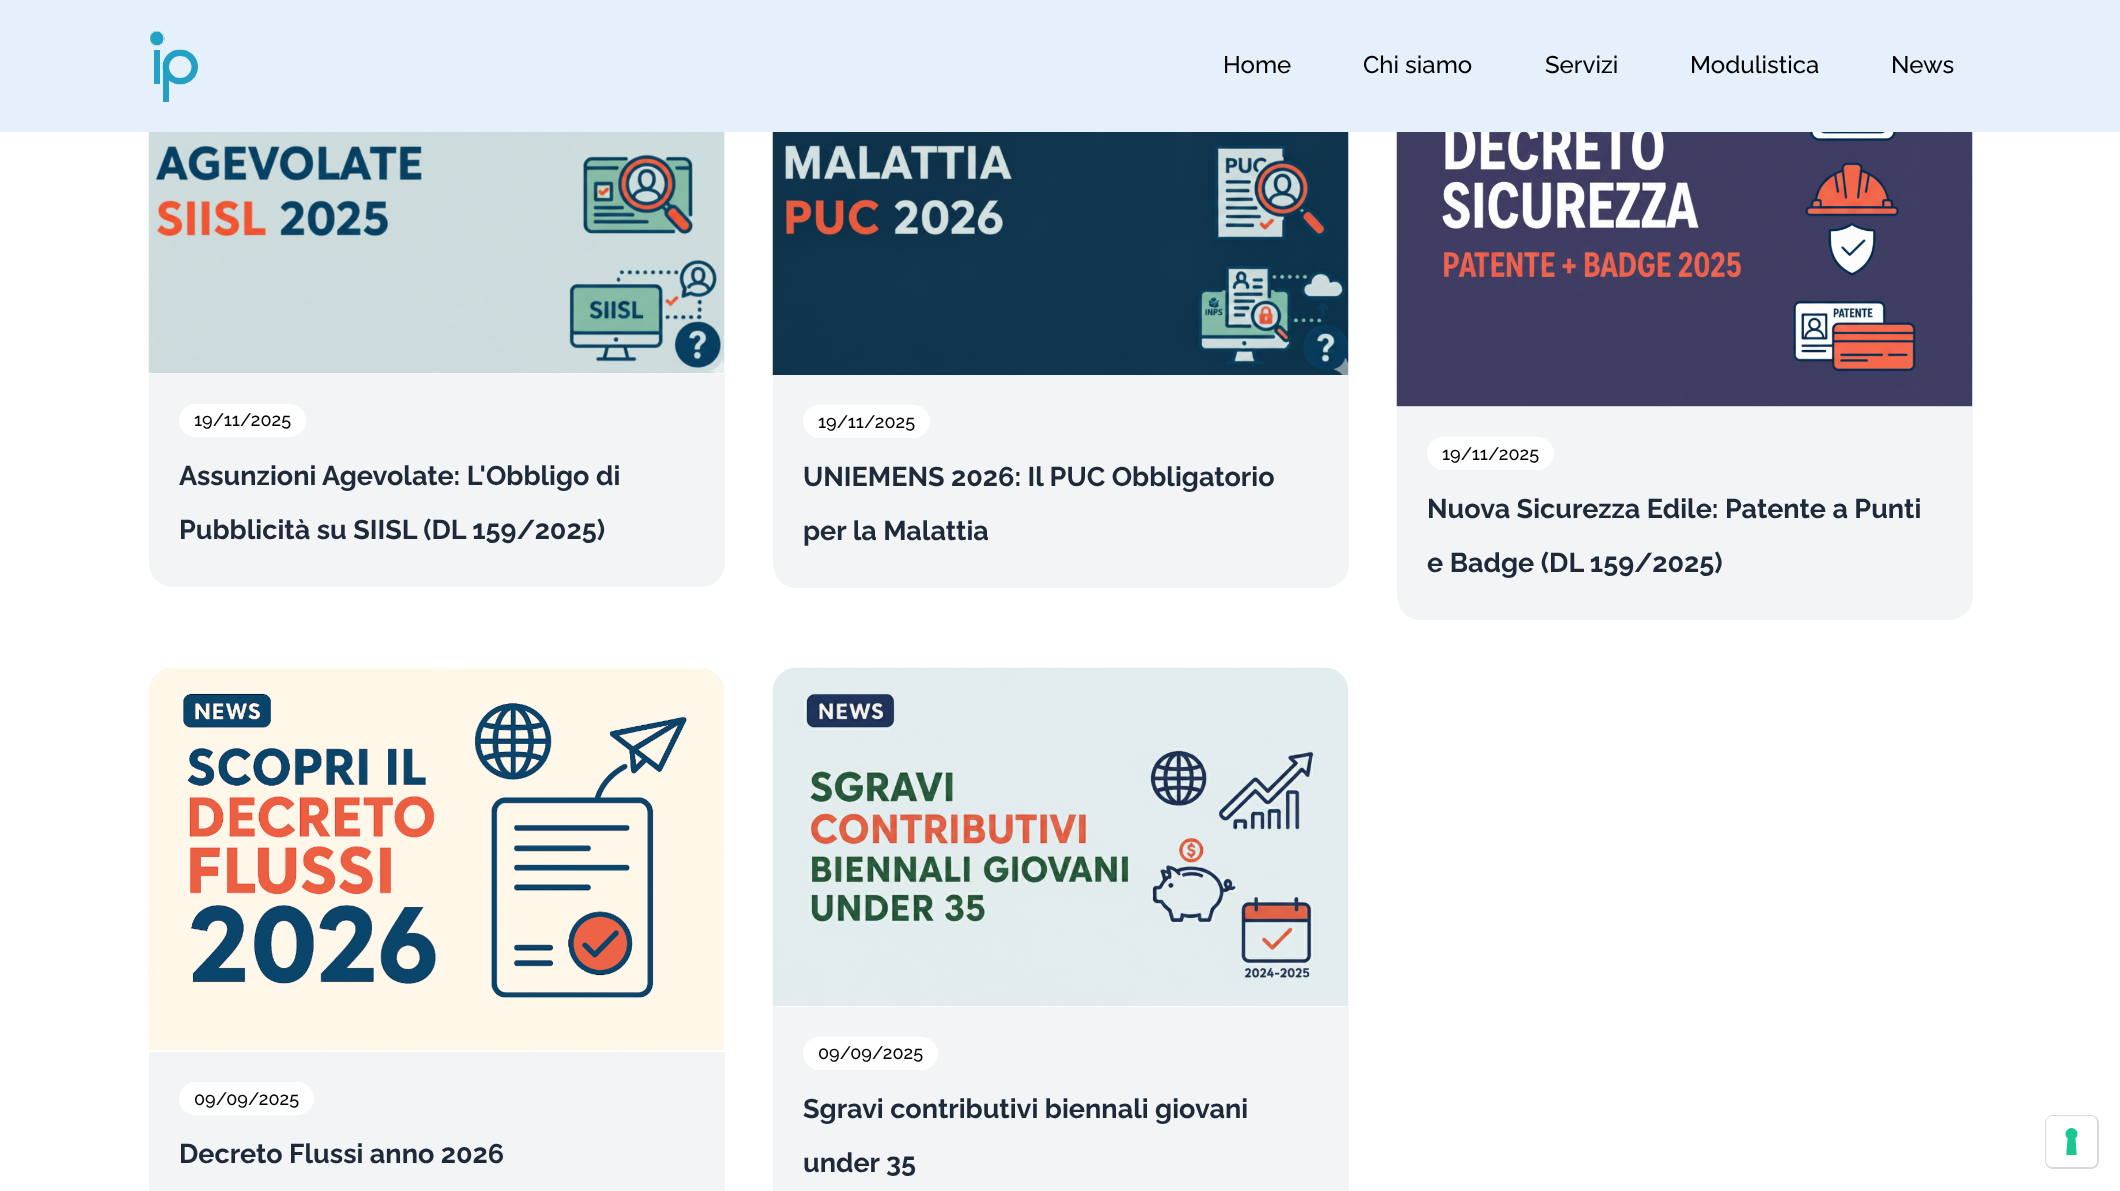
async function draw(canvas) {
	canvas.width = 2120;
	canvas.height = 1191;
	const c = canvas.getContext('2d');
	c.miterLimit = 4;
	c.fontKerning = 'normal';
	async function loadImage(src) {
		const img = new Image();
		img.src = src;
		await img.decode();
		return img;
	}

	c.fillStyle = '#fff';
	c.fillRect(0, 0, 2120, 1191);
	for (const [x, y, w, h, color] of [
		[0, 0, 2120, 132, '#e6f0fb'],
		[154, 50, 6, 34, '#22a1c4'],
		[163, 67, 6, 35, '#22a1c4'],
	]) {
		c.fillStyle = color;
		c.fillRect(x, y, w, h);
	}
	c.save();
	c.beginPath();
	c.moveTo(162.5, 49.5);
	c.lineTo(198, 49.5);
	c.lineTo(198, 84.5);
	c.lineTo(162.5, 84.5);
	c.closePath();
	c.clip();
	c.beginPath();
	c.moveTo(180, 49.5);
	c.bezierCurveTo(170.5, 49.5, 162.5, 57, 162.5, 67);
	c.bezierCurveTo(162.5, 76.5, 170.5, 84.5, 180, 84.5);
	c.bezierCurveTo(190, 84.5, 198, 76.5, 198, 67);
	c.bezierCurveTo(198, 57, 190, 49.5, 180, 49.5);
	c.closePath();
	c.clip();
	c.beginPath();
	c.moveTo(180, 49.5);
	c.bezierCurveTo(170.5, 49.5, 162.5, 57, 162.5, 67);
	c.bezierCurveTo(162.5, 76.5, 170.5, 84.5, 180, 84.5);
	c.bezierCurveTo(190, 84.5, 198, 76.5, 198, 67);
	c.bezierCurveTo(198, 57, 190, 49.5, 180, 49.5);
	c.closePath();
	c.strokeStyle = '#22a1c4';
	c.lineWidth = 13.1;
	c.stroke();
	c.restore();
	c.beginPath();
	c.moveTo(158.5, 31);
	c.lineTo(155, 31);
	c.bezierCurveTo(153, 31.5, 151, 33, 150, 35);
	c.lineTo(150, 41.5);
	c.bezierCurveTo(151, 44, 154, 46, 157, 46);
	c.bezierCurveTo(161, 46, 164.5, 42.5, 164.5, 38.5);
	c.bezierCurveTo(164.5, 35, 162, 32, 158.5, 31);
	c.closePath();
	c.fill();
	c.save();
	c.beginPath();
	c.moveTo(149.5, 31);
	c.lineTo(164.5, 31);
	c.lineTo(164.5, 46);
	c.lineTo(149.5, 46);
	c.closePath();
	c.clip();
	c.beginPath();
	c.moveTo(157, 31);
	c.bezierCurveTo(152.5, 31, 149.5, 34, 149.5, 38.5);
	c.bezierCurveTo(149.5, 42.5, 152.5, 46, 157, 46);
	c.bezierCurveTo(161, 46, 164.5, 42.5, 164.5, 38.5);
	c.bezierCurveTo(164.5, 34, 161, 31, 157, 31);
	c.closePath();
	c.clip();
	c.beginPath();
	c.moveTo(157, 31);
	c.bezierCurveTo(147, 31, 147, 46, 157, 46);
	c.bezierCurveTo(166.5, 46, 166.5, 31, 157, 31);
	c.closePath();
	c.strokeStyle = '#fff';
	c.lineWidth = 1.2;
	c.stroke();
	c.restore();
	c.font = '500 24px Raleway';
	c.fillStyle = '#000';
	for (const [text, x, y] of [
		['Home', 1223, 73],
		['Chi siamo', 1363, 73],
		['Servizi', 1545, 73],
		['Modulistica', 1690, 73],
		['News', 1891, 73],
	]) {
		c.fillText(text, x, y);
	}
	c.drawImage(await loadImage('img1.png'), 148, 132, 577, 242);
	c.fillStyle = '#f3f4f6';
	c.beginPath();
	c.roundRect(149, 374, 576, 213, [0, 0, 24, 24]);
	c.fill();
	c.fillStyle = '#fff';
	c.beginPath();
	c.roundRect(179, 404, 127, 33, 16.5);
	c.fill();
	c.font = '500 18px Raleway';
	c.fillStyle = '#000';
	c.fillText('19/11/2025', 194, 426);
	c.font = 'bold 27px Raleway';
	c.fillStyle = '#1e2939';
	c.fillText('Assunzioni Agevolate: L\'Obbligo di', 179, 485);
	c.fillText('Pubblicità su SIISL (DL 159/2025)', 179, 539);
	c.drawImage(await loadImage('img2.png'), 772, 132, 577, 243);
	c.fillStyle = '#f3f4f6';
	c.beginPath();
	c.roundRect(773, 375, 576, 213, [0, 0, 24, 24]);
	c.fill();
	c.fillStyle = '#fff';
	c.beginPath();
	c.roundRect(803, 405, 127, 33, 16.5);
	c.fill();
	c.font = '500 18px Raleway';
	c.fillStyle = '#000';
	c.fillText('19/11/2025', 818, 428);
	c.font = 'bold 27px Raleway';
	c.fillStyle = '#1e2939';
	c.fillText('UNIEMENS 2026: Il PUC Obbligatorio', 803, 486);
	c.fillText('per la Malattia', 803, 540);
	c.drawImage(await loadImage('img3.png'), 1396, 132, 577, 275);
	c.fillStyle = '#f3f4f6';
	c.beginPath();
	c.roundRect(1397, 407, 576, 213, [0, 0, 24, 24]);
	c.fill();
	c.fillStyle = '#fff';
	c.beginPath();
	c.roundRect(1427, 437, 127, 33, 16.5);
	c.fill();
	c.font = '500 18px Raleway';
	c.fillStyle = '#000';
	c.fillText('19/11/2025', 1442, 460);
	c.font = 'bold 27px Raleway';
	c.fillStyle = '#1e2939';
	c.fillText('Nuova Sicurezza Edile: Patente a Punti', 1427, 518);
	c.fillText('e Badge (DL 159/2025)', 1427, 572);
	c.drawImage(await loadImage('img4.png'), 148, 667, 577, 384);
	c.fillStyle = '#f3f4f6';
	c.beginPath();
	c.moveTo(149, 1052);
	c.lineTo(725, 1052);
	c.lineTo(725, 1187);
	c.bezierCurveTo(725, 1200.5, 714.5, 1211, 701, 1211);
	c.lineTo(173, 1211);
	c.bezierCurveTo(159.5, 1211, 149, 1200.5, 149, 1187);
	c.closePath();
	c.fill();
	c.fillStyle = '#fff';
	c.beginPath();
	c.roundRect(179, 1082, 135, 33, 16.5);
	c.fill();
	c.font = '500 18px Raleway';
	c.fillStyle = '#000';
	c.fillText('09/09/2025', 194, 1105);
	c.font = 'bold 27px Raleway';
	c.fillStyle = '#1e2939';
	c.fillText('Decreto Flussi anno 2026', 179, 1163);
	c.drawImage(await loadImage('img5.png'), 772, 667, 577, 340);
	c.fillStyle = '#f3f4f6';
	c.fillRect(773, 1007, 576, 184);
	c.fillStyle = '#fff';
	c.beginPath();
	c.roundRect(803, 1037, 135, 33, 16.5);
	c.fill();
	c.font = '500 18px Raleway';
	c.fillStyle = '#000';
	c.fillText('09/09/2025', 818, 1059);
	c.font = 'bold 27px Raleway';
	c.fillStyle = '#1e2939';
	c.fillText('Sgravi contributivi biennali giovani', 803, 1118);
	c.fillText('under 35', 803, 1172);
	c.beginPath();
	c.roundRect(2046, 1116, 52, 52, 7);
	c.strokeStyle = '#d9d9d9';
	c.lineWidth = 2;
	c.stroke();
	c.fillStyle = '#fff';
	c.beginPath();
	c.roundRect(2046, 1116, 51, 51, 6);
	c.fill();
	c.drawImage(await loadImage('img6.png'), 2065, 1128, 13, 27);
}

draw(document.querySelector('canvas'));
